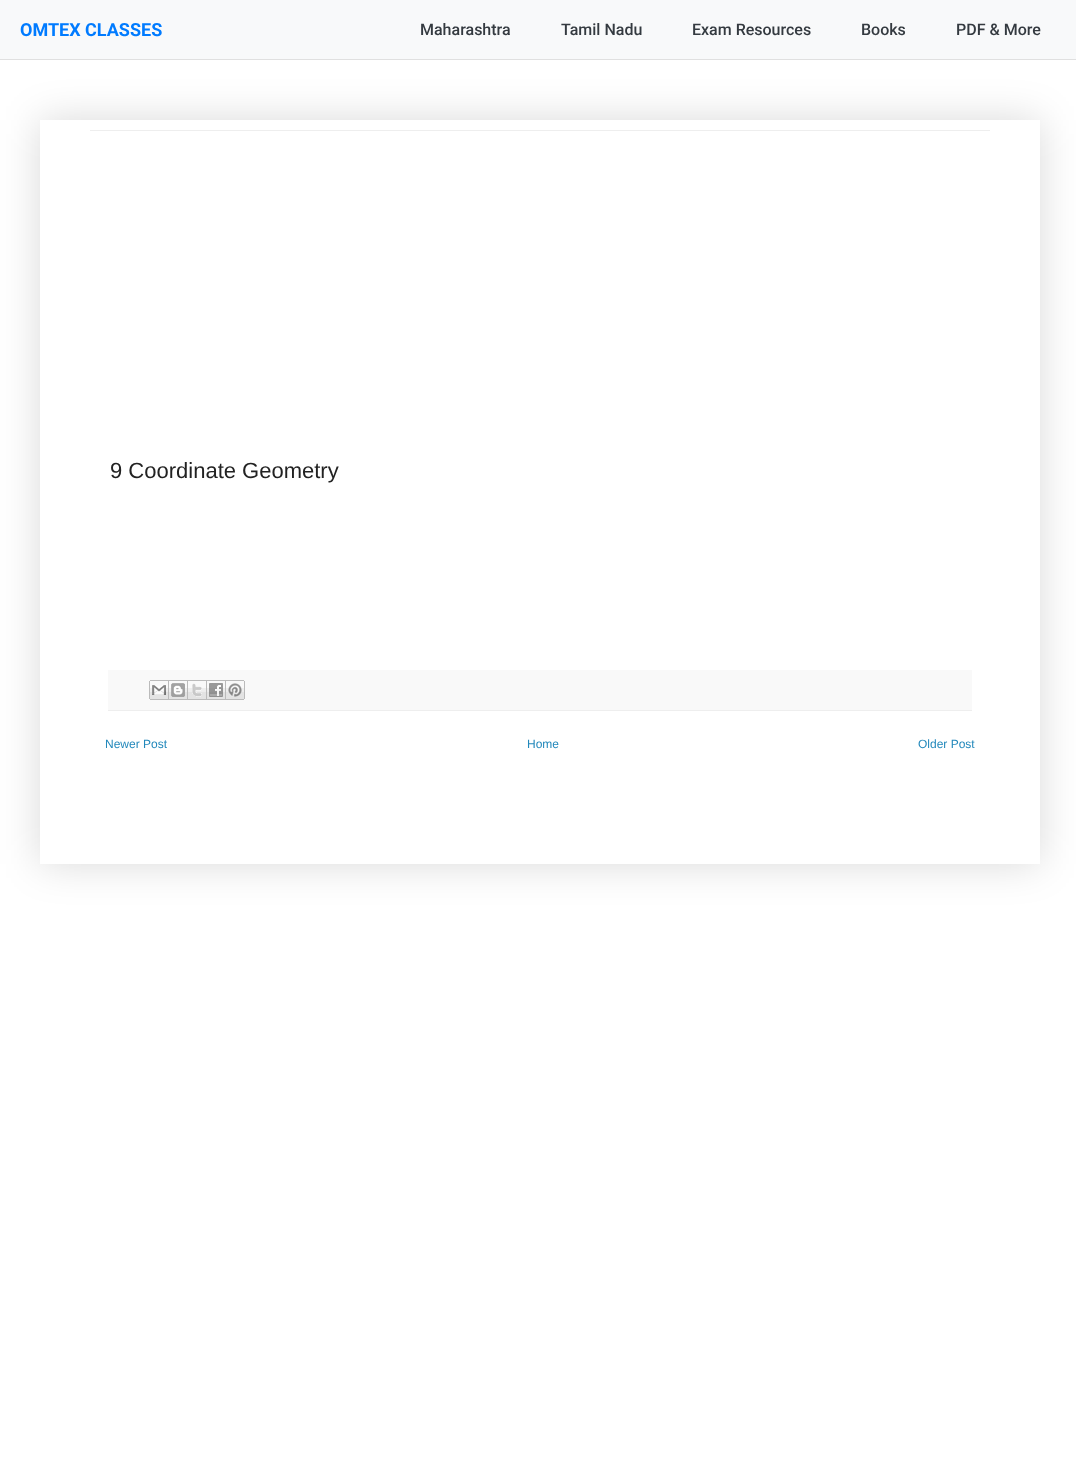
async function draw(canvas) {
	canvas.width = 1076;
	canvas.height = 1471;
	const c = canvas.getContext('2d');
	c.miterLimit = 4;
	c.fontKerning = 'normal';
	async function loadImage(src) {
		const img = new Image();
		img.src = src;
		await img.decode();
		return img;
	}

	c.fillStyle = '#fff';
	c.fillRect(0, 0, 1076, 1471);
	c.fillStyle = '#f8f9fa';
	c.fillRect(0, 0, 1076, 59);
	c.save();
	c.beginPath();
	c.moveTo(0, 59);
	c.lineTo(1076, 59);
	c.lineTo(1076, 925);
	c.lineTo(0, 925);
	c.closePath();
	c.moveTo(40, 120);
	c.lineTo(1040, 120);
	c.lineTo(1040, 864);
	c.lineTo(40, 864);
	c.closePath();
	c.clip('evenodd');
	c.fillStyle = '#00000026';
	c.filter = 'blur(20px)';
	c.beginPath();
	c.rect(40, 120, 1000, 744);
	c.fill();
	c.filter = 'none';
	c.restore();
	c.fillStyle = '#e0e0e0';
	c.fillRect(0, 59, 1076, 1);
	c.font = 'bold 18px Roboto';
	c.fillStyle = '#007bff';
	c.fillText('OMTEX CLASSES', 20, 36);
	c.font = '500 16px Roboto';
	c.fillStyle = '#343a40';
	for (const [text, x, y] of [
		['Maharashtra', 420, 35],
		['Tamil Nadu', 561, 35],
		['Exam Resources', 692, 35],
		['Books', 861, 35],
		['PDF & More', 956, 35],
	]) {
		c.fillText(text, x, y);
	}
	c.fillStyle = '#eee';
	c.fillRect(90, 130, 900, 1);
	c.font = '22px Liberation Sans';
	c.fillStyle = '#222';
	c.fillText('9 Coordinate Geometry', 110, 478);
	c.fillStyle = '#f9f9f9';
	c.fillRect(108, 670, 864, 40);
	c.fillStyle = '#eee';
	c.fillRect(108, 710, 864, 1);
	c.drawImage(await loadImage('img1.png'), 149, 680, 20, 20);
	c.drawImage(await loadImage('img2.png'), 169, 680, 19, 20);
	c.drawImage(await loadImage('img3.png'), 188, 680, 19, 20);
	c.drawImage(await loadImage('img4.png'), 207, 680, 19, 20);
	c.drawImage(await loadImage('img5.png'), 226, 680, 19, 20);
	c.font = '12px Liberation Sans';
	c.fillStyle = '#28b';
	for (const [text, x, y] of [
		['Newer Post', 105, 748],
		['Home', 527, 748],
		['Older Post', 918, 748],
	]) {
		c.fillText(text, x, y);
	}
}

draw(document.querySelector('canvas'));
